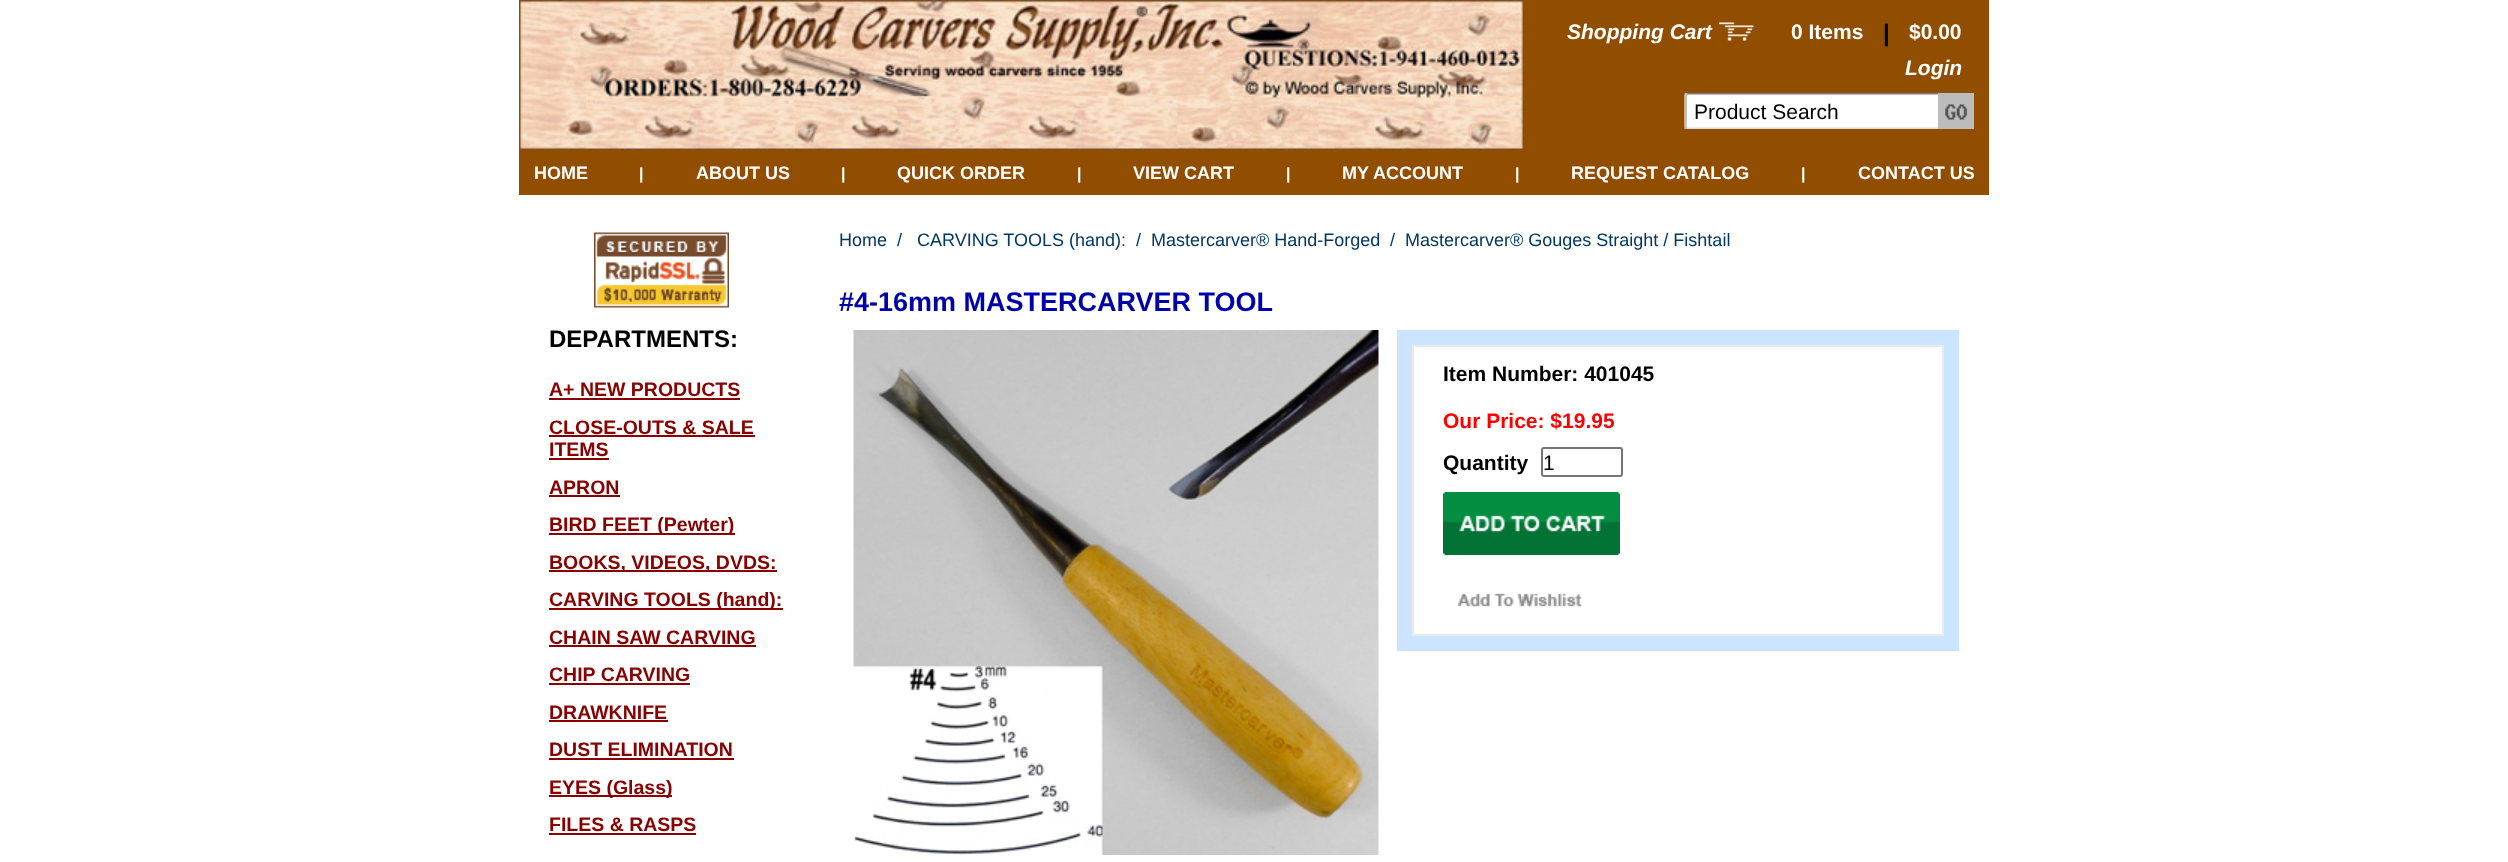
async function draw(canvas) {
	canvas.width = 2508;
	canvas.height = 862;
	const c = canvas.getContext('2d');
	c.miterLimit = 4;
	c.fontKerning = 'normal';
	async function loadImage(src) {
		const img = new Image();
		img.src = src;
		await img.decode();
		return img;
	}

	c.fillStyle = '#fff';
	c.fillRect(0, 0, 2508, 862);
	c.fillStyle = '#914d00';
	c.fillRect(1524, 0, 465, 150);
	c.drawImage(await loadImage('img1.png'), 519, 0, 1005, 150);
	c.font = 'italic bold 21px Liberation Sans';
	c.fillStyle = '#fff';
	c.fillText('Shopping Cart', 1567, 39);
	c.drawImage(await loadImage('img2.png'), 1719, 22, 35, 19);
	c.font = 'bold 21px Liberation Sans';
	c.fillText('0 Items', 1791, 39);
	c.font = 'bold 24px Liberation Sans';
	c.fillStyle = '#000';
	c.fillText('|', 1883, 41);
	c.font = 'bold 21px Liberation Sans';
	c.fillStyle = '#fff';
	c.fillText('$0.00', 1909, 39);
	c.font = 'italic bold 21px Liberation Sans';
	c.fillText('Login', 1905, 75);
	c.drawImage(await loadImage('img3.png'), 1684, 93, 254, 36);
	c.fillStyle = '#c2c2c2';
	c.fillRect(1685, 93, 2, 36);
	c.font = '21px Liberation Sans';
	c.fillStyle = '#000';
	c.fillText('Product Search', 1694, 119);
	c.drawImage(await loadImage('img4.png'), 1938, 93, 36, 36);
	c.fillStyle = '#914d00';
	c.fillRect(519, 150, 1470, 45);
	c.font = 'bold 18px Liberation Sans';
	c.fillStyle = '#fff';
	c.fillText('HOME', 534, 179);
	c.font = 'bold 16px Liberation Sans';
	c.fillText('|', 639, 179);
	c.font = 'bold 18px Liberation Sans';
	c.fillText('ABOUT US', 696, 179);
	c.font = 'bold 16px Liberation Sans';
	c.fillText('|', 841, 179);
	c.font = 'bold 18px Liberation Sans';
	c.fillText('QUICK ORDER', 897, 179);
	c.font = 'bold 16px Liberation Sans';
	c.fillText('|', 1077, 179);
	c.font = 'bold 18px Liberation Sans';
	c.fillText('VIEW CART', 1133, 179);
	c.font = 'bold 16px Liberation Sans';
	c.fillText('|', 1286, 179);
	c.font = 'bold 18px Liberation Sans';
	c.fillText('MY ACCOUNT', 1342, 179);
	c.font = 'bold 16px Liberation Sans';
	c.fillText('|', 1515, 179);
	c.font = 'bold 18px Liberation Sans';
	c.fillText('REQUEST CATALOG', 1571, 179);
	c.font = 'bold 16px Liberation Sans';
	c.fillText('|', 1801, 179);
	c.font = 'bold 18px Liberation Sans';
	c.fillText('CONTACT US', 1858, 179);
	c.drawImage(await loadImage('img5.png'), 594, 232, 135, 76);
	c.font = 'bold 24px Liberation Sans';
	c.fillStyle = '#000';
	c.fillText('DEPARTMENTS:', 549, 347);
	c.font = 'bold 19.5px Liberation Sans';
	c.fillStyle = '#800';
	c.fillText('A+ NEW PRODUCTS', 549, 396);
	c.fillRect(549, 398, 191, 2);
	c.fillText('CLOSE-OUTS & SALE', 549, 434);
	c.fillRect(549, 435, 206, 2);
	c.fillText('ITEMS', 549, 456);
	c.fillRect(549, 458, 60, 2);
	c.fillText('APRON', 549, 494);
	c.fillRect(549, 495, 71, 2);
	c.fillRect(549, 533, 186, 2);
	c.fillText('BIRD FEET (Pewter)', 549, 531);
	c.fillRect(549, 570, 228, 2);
	c.fillText('BOOKS, VIDEOS, DVDS:', 549, 569);
	c.fillRect(549, 608, 234, 2);
	c.fillText('CARVING TOOLS (hand):', 549, 606);
	c.fillText('CHAIN SAW CARVING', 549, 644);
	c.fillRect(549, 645, 207, 2);
	c.fillText('CHIP CARVING', 549, 681);
	c.fillRect(549, 683, 141, 2);
	c.fillText('DRAWKNIFE', 549, 719);
	c.fillRect(549, 720, 119, 2);
	c.fillText('DUST ELIMINATION', 549, 756);
	c.fillRect(549, 758, 185, 2);
	c.fillRect(549, 795, 123, 2);
	c.fillText('EYES (Glass)', 549, 794);
	c.fillText('FILES & RASPS', 549, 831);
	c.fillRect(549, 833, 147, 2);
	c.font = '18px Liberation Sans';
	c.fillStyle = '#003861';
	for (const [text, x, y] of [
		['Home', 839, 246],
		['/', 897, 246],
		['CARVING TOOLS (hand):', 917, 246],
		['/', 1136, 246],
		['Mastercarver® Hand-Forged', 1151, 246],
		['/', 1390, 246],
		['Mastercarver® Gouges Straight / Fishtail', 1405, 246],
	]) {
		c.fillText(text, x, y);
	}
	c.font = 'bold 27px Liberation Sans';
	c.fillStyle = '#00a';
	c.fillText('#4-16mm MASTERCARVER TOOL', 839, 311);
	c.drawImage(await loadImage('img6.png'), 853, 330, 526, 525);
	c.fillStyle = '#cce5ff';
	c.fillRect(1397, 330, 562, 321);
	c.fillStyle = '#fff';
	c.beginPath();
	c.rect(1413, 346, 530, 289);
	c.fill();
	c.strokeStyle = '#ebebeb';
	c.lineWidth = 2;
	c.stroke();
	c.font = 'bold 21px Liberation Sans';
	c.fillStyle = '#000';
	c.fillText('Item Number: 401045', 1443, 381);
	c.fillStyle = '#f00';
	c.fillText('Our Price: $19.95', 1443, 428);
	c.fillStyle = '#000';
	c.fillText('Quantity', 1443, 470);
	c.beginPath();
	c.roundRect(1542, 448, 80, 28, 2);
	c.strokeStyle = '#767676';
	c.stroke();
	c.font = '21px Liberation Sans';
	c.fillText('1', 1543, 470);
	c.drawImage(await loadImage('img7.png'), 1443, 492, 177, 63);
	c.drawImage(await loadImage('img8.png'), 1457, 593, 125, 14);
}

draw(document.querySelector('canvas'));
